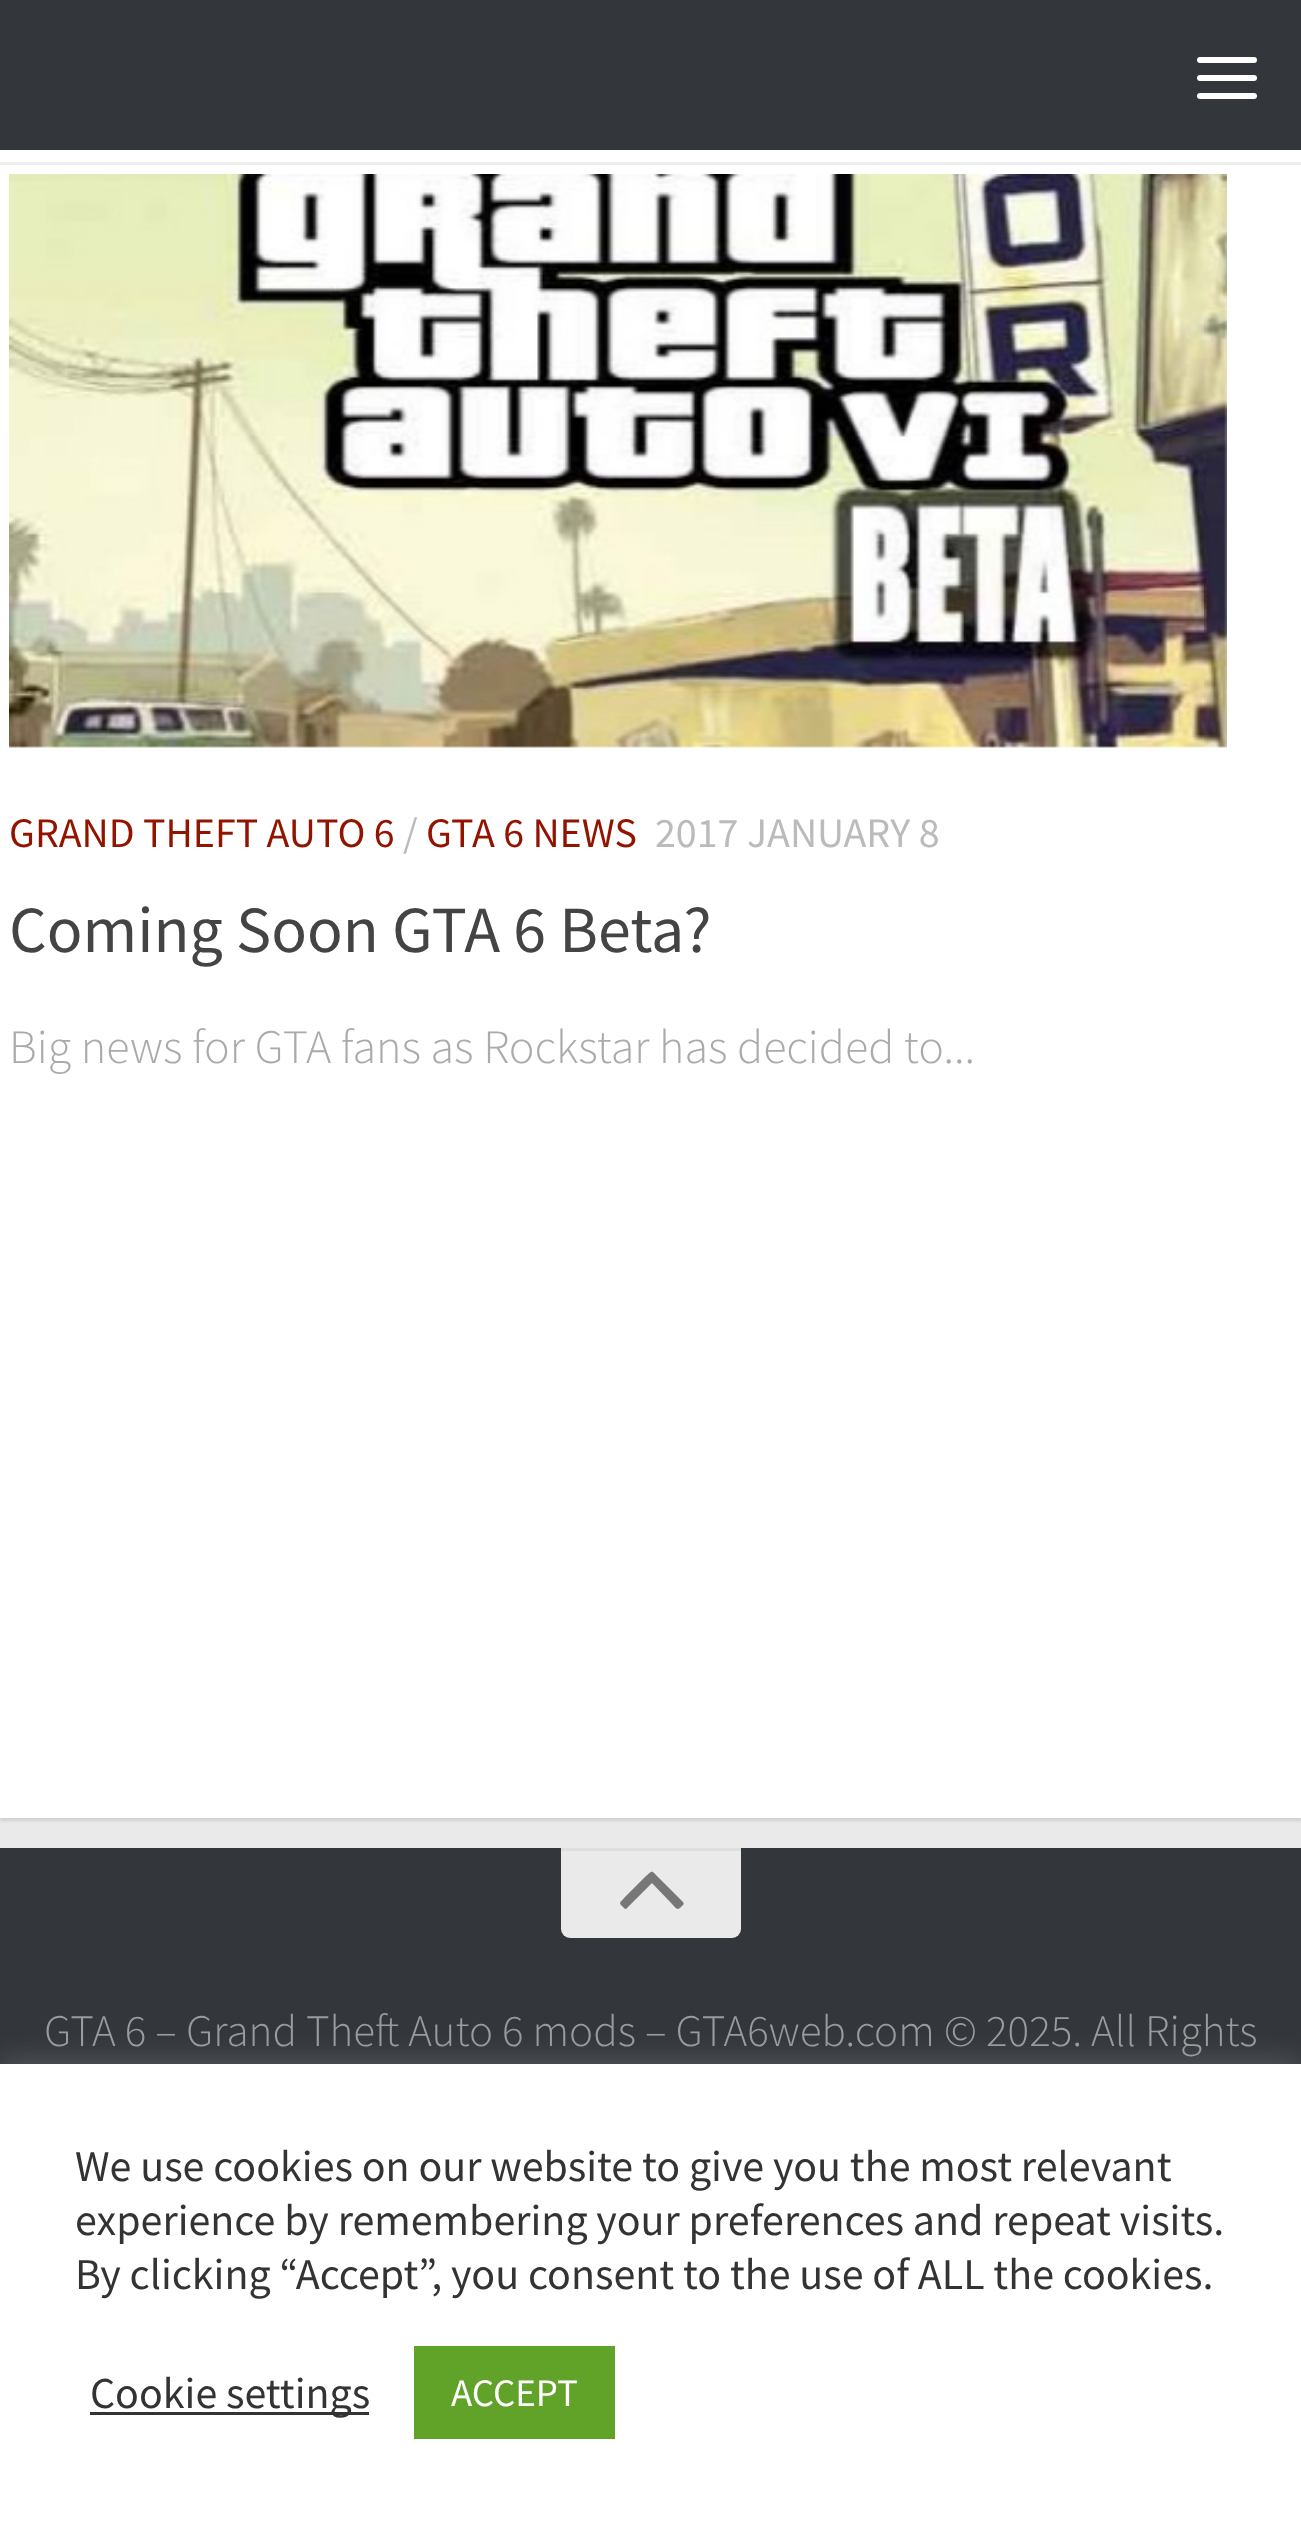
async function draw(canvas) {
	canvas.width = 1301;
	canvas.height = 2528;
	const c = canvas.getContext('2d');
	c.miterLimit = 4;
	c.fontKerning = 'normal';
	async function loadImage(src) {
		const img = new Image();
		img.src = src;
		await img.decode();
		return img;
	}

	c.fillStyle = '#eaeaea';
	c.fillRect(0, 0, 1301, 2528);
	c.fillStyle = '#0000001a';
	c.filter = 'blur(1.5px)';
	c.beginPath();
	c.rect(0, 21, 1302, 1800);
	c.fill();
	c.filter = 'none';
	c.fillStyle = '#33363b';
	c.fillRect(0, 0, 1301, 150);
	c.fillStyle = '#fff';
	c.beginPath();
	c.roundRect(1197, 57, 60, 6, 3);
	c.fill();
	c.beginPath();
	c.roundRect(1197, 75, 60, 6, 3);
	c.fill();
	c.beginPath();
	c.roundRect(1197, 93, 60, 6, 3);
	c.fill();
	c.fillRect(0, 150, 1301, 1668);
	c.fillStyle = '#eee';
	c.fillRect(0, 162, 1301, 3);
	c.drawImage(await loadImage('img1.png'), 9, 174, 1218, 574);
	c.font = '42px Source Sans Pro';
	c.fillStyle = '#911300';
	c.fillText('GRAND THEFT AUTO 6', 9, 847);
	c.fillStyle = '#bbb';
	c.fillText('/', 403, 847);
	c.fillStyle = '#911300';
	c.fillText('GTA 6 NEWS', 426, 847);
	c.fillStyle = '#bbb';
	c.fillText('2017 JANUARY 8', 655, 847);
	c.font = '66px Source Sans Pro';
	c.fillStyle = '#444';
	c.fillText('Coming Soon GTA 6 Beta?', 9, 952);
	c.font = '300 48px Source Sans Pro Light';
	c.fillStyle = '#aaa';
	c.fillText('Big news for GTA fans as Rockstar has decided to...', 9, 1063);
	c.fillStyle = '#33363b';
	c.fillRect(0, 1848, 1301, 216);
	c.fillStyle = '#eaeaea';
	c.beginPath();
	c.roundRect(561, 1848, 180, 90, [0, 0, 9, 9]);
	c.fill();
	c.fillStyle = '#dedede';
	c.fillRect(561, 1848, 180, 3);
	c.fillStyle = '#777';
	c.beginPath();
	c.moveTo(683, 1902);
	c.bezierCurveTo(685, 1904, 682, 1906, 681, 1907);
	c.bezierCurveTo(677, 1911, 676, 1908, 672, 1904);
	c.lineTo(652, 1883);
	c.lineTo(626, 1909);
	c.bezierCurveTo(625, 1909, 624, 1908, 623, 1907);
	c.bezierCurveTo(618, 1902, 620, 1903, 625, 1897);
	c.lineTo(645, 1877);
	c.bezierCurveTo(653, 1870, 651, 1870, 658, 1877);
	c.closePath();
	c.fill();
	c.font = '300 45px Source Sans Pro Light';
	c.fillStyle = '#999b9d';
	c.fillText('GTA 6 – Grand Theft Auto 6 mods – GTA6web.com © 2025. All Rights', 44, 2046);
	c.fillStyle = '#acabab4d';
	c.filter = 'blur(15px)';
	c.beginPath();
	c.rect(0, 2061, 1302, 465);
	c.fill();
	c.filter = 'none';
	c.fillStyle = '#fff';
	c.fillRect(0, 2064, 1301, 464);
	c.font = '44px Source Sans Pro';
	c.fillStyle = '#333';
	for (const [text, x, y] of [
		['We use cookies on our website to give you the most relevant', 75, 2181],
		['experience by remembering your preferences and repeat visits.', 75, 2235],
		['By clicking “Accept”, you consent to the use of ALL the cookies.', 75, 2289],
	]) {
		c.fillText(text, x, y);
	}
	c.fillRect(90, 2412, 279, 3);
	c.fillText('Cookie settings', 90, 2408);
	c.fillStyle = '#61a229';
	c.fillRect(414, 2346, 201, 93);
	c.font = '39px Source Sans Pro';
	c.fillStyle = '#fff';
	c.fillText('ACCEPT', 451, 2406);
}

draw(document.querySelector('canvas'));
